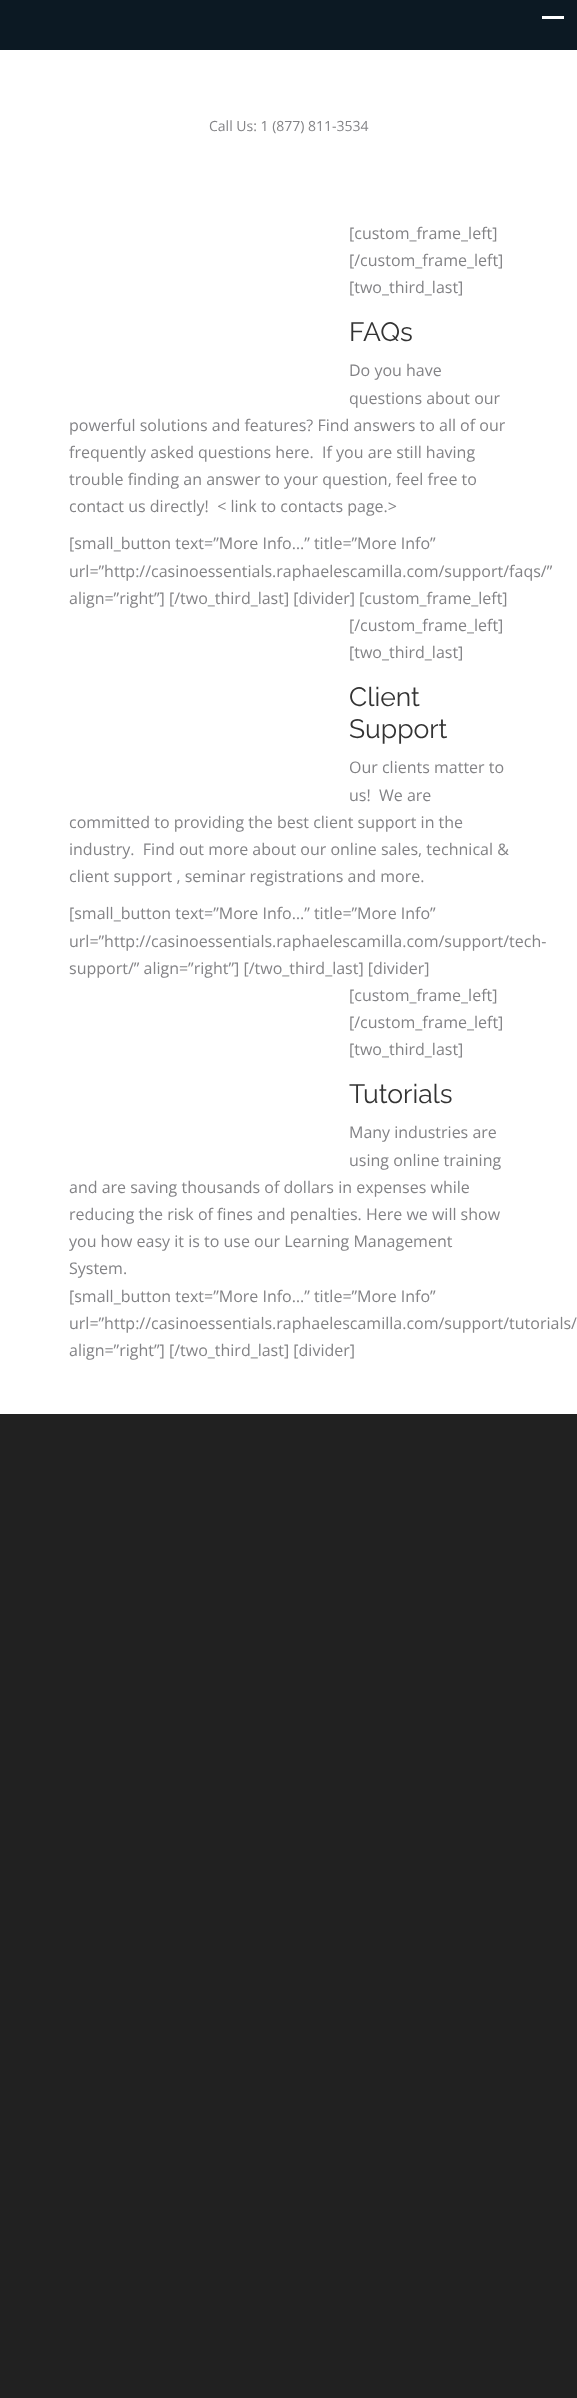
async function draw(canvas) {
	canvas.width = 577;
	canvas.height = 2398;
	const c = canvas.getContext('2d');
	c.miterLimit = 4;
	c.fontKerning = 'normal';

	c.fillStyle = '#212121';
	c.fillRect(0, 0, 577, 2398);
	for (const [x, y, w, h, color] of [
		[0, 0, 577, 50, '#0c1923'],
		[542, 16, 22, 3, '#fff'],
		[0, 50, 577, 1364, '#fff'],
	]) {
		c.fillStyle = color;
		c.fillRect(x, y, w, h);
	}
	c.font = '14px Open Sans';
	c.fillStyle = '#838386';
	c.fillText('Call Us: 1 (877) 811-3534', 209, 131);
	c.font = '16px Open Sans';
	for (const [text, x, y] of [
		['[custom_frame_left]', 349, 239],
		['[/custom_frame_left]', 349, 266],
		['[two_third_last]', 349, 293],
	]) {
		c.fillText(text, x, y);
	}
	c.font = '100 26.5px Raleway';
	c.fillStyle = '#333';
	c.fillText('FAQs', 349, 341);
	c.font = '16px Open Sans';
	c.fillStyle = '#838386';
	for (const [text, x, y] of [
		['Do you have', 349, 376],
		['questions about our', 349, 404],
		['powerful solutions and features? Find answers to all of our', 69, 431],
		['frequently asked questions here.  If you are still having', 69, 458],
		['trouble finding an answer to your question, feel free to', 69, 485],
		['contact us directly!  < link to contacts page.>', 69, 512],
		['[small_button text=”More Info…” title=”More Info”', 69, 549],
		['url=”http://casinoessentials.raphaelescamilla.com/support/faqs/”', 69, 577],
		['align=”right”] [/two_third_last] [divider] [custom_frame_left]', 69, 604],
		['[/custom_frame_left]', 349, 631],
		['[two_third_last]', 349, 658],
	]) {
		c.fillText(text, x, y);
	}
	c.font = '100 26.5px Raleway';
	c.fillStyle = '#333';
	c.fillText('Client', 349, 706);
	c.fillText('Support', 349, 738);
	c.font = '16px Open Sans';
	c.fillStyle = '#838386';
	for (const [text, x, y] of [
		['Our clients matter to', 349, 773],
		['us!  We are', 349, 801],
		['committed to providing the best client support in the', 69, 828],
		['industry.  Find out more about our online sales, technical &', 69, 855],
		['client support , seminar registrations and more.', 69, 882],
		['[small_button text=”More Info…” title=”More Info”', 69, 919],
		['url=”http://casinoessentials.raphaelescamilla.com/support/tech-', 69, 947],
		['support/” align=”right”] [/two_third_last] [divider]', 69, 974],
		['[custom_frame_left]', 349, 1001],
		['[/custom_frame_left]', 349, 1028],
		['[two_third_last]', 349, 1055],
	]) {
		c.fillText(text, x, y);
	}
	c.font = '100 26.5px Raleway';
	c.fillStyle = '#333';
	c.fillText('Tutorials', 349, 1103);
	c.font = '16px Open Sans';
	c.fillStyle = '#838386';
	for (const [text, x, y] of [
		['Many industries are', 349, 1138],
		['using online training', 349, 1166],
		['and are saving thousands of dollars in expenses while', 69, 1193],
		['reducing the risk of fines and penalties. Here we will show', 69, 1220],
		['you how easy it is to use our Learning Management', 69, 1247],
		['System.', 69, 1274],
		['[small_button text=”More Info…” title=”More Info”', 69, 1302],
		['url=”http://casinoessentials.raphaelescamilla.com/support/tutorials/', 69, 1329],
		['align=”right”] [/two_third_last] [divider]', 69, 1356],
	]) {
		c.fillText(text, x, y);
	}
}

draw(document.querySelector('canvas'));
